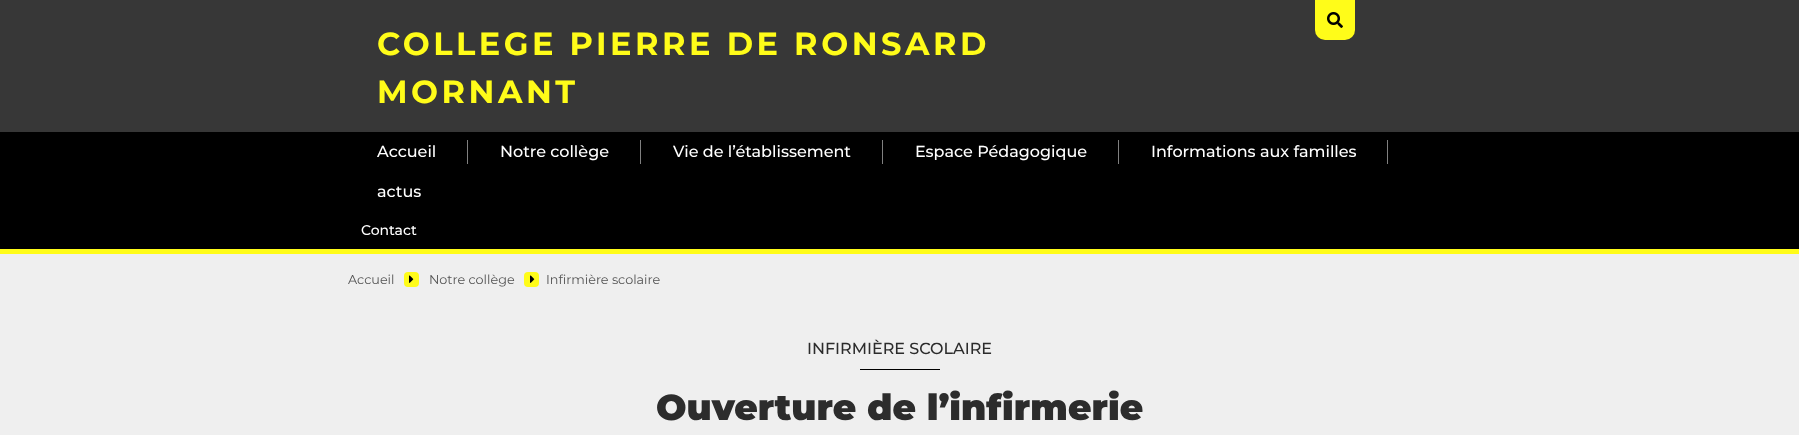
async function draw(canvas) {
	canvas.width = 1799;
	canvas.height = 435;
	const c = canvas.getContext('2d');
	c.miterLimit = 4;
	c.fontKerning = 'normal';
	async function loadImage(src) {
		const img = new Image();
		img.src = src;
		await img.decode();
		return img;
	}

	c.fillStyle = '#efefef';
	c.fillRect(0, 0, 1799, 435);
	c.fillStyle = '#373737';
	c.fillRect(0, 0, 1799, 132);
	c.fillStyle = '#fffc19';
	c.beginPath();
	c.roundRect(1315, 0, 40, 40, [0, 0, 10, 10]);
	c.fill();
	c.drawImage(await loadImage('img1.png'), 1327, 12, 16, 16);
	c.letterSpacing = '3.5px';
	c.font = 'bold 32px Montserrat';
	c.fillText('COLLEGE PIERRE DE RONSARD', 377, 55);
	c.fillText('MORNANT', 377, 103);
	c.fillStyle = '#000';
	c.fillRect(0, 132, 1799, 117);
	c.fillStyle = '#fffc19';
	c.fillRect(0, 249, 1799, 5);
	c.letterSpacing = '0px';
	c.font = '500 16px Montserrat';
	c.fillStyle = '#fff';
	c.fillText('Accueil', 377, 157);
	c.fillStyle = '#808080';
	c.fillRect(467, 140, 1, 24);
	c.fillStyle = '#fff';
	c.fillText('Notre collège', 500, 157);
	c.fillStyle = '#808080';
	c.fillRect(640, 140, 1, 24);
	c.fillStyle = '#fff';
	c.fillText('Vie de l’établissement', 673, 157);
	c.fillStyle = '#808080';
	c.fillRect(882, 140, 1, 24);
	c.fillStyle = '#fff';
	c.fillText('Espace Pédagogique', 915, 157);
	c.fillStyle = '#808080';
	c.fillRect(1118, 140, 1, 24);
	c.fillStyle = '#fff';
	c.fillText('Informations aux familles', 1151, 157);
	c.fillStyle = '#808080';
	c.fillRect(1387, 140, 1, 24);
	c.fillStyle = '#fff';
	c.fillText('actus', 377, 197);
	c.font = '500 14px Montserrat';
	c.fillText('Contact', 361, 235);
	c.font = '12.75px Montserrat';
	c.fillStyle = '#535353';
	c.fillText('Accueil', 348, 284);
	c.fillStyle = '#fffc19';
	c.beginPath();
	c.roundRect(404, 272, 15, 15, 4);
	c.fill();
	c.drawImage(await loadImage('img2.png'), 409, 275, 5, 8);
	c.fillStyle = '#535353';
	c.fillText('Notre collège', 429, 284);
	c.fillStyle = '#fffc19';
	c.beginPath();
	c.roundRect(524, 272, 15, 15, 4);
	c.fill();
	c.drawImage(await loadImage('img2.png'), 530, 275, 5, 8);
	c.fillStyle = '#535353';
	c.fillText('Infirmière scolaire', 546, 284);
	c.font = '500 16px Montserrat';
	c.fillStyle = '#2c2c2c';
	c.fillText('INFIRMIÈRE SCOLAIRE', 807, 354);
	c.fillStyle = '#000';
	c.fillRect(860, 369, 80, 1);
	c.font = '900 36px Montserrat';
	c.fillStyle = '#2c2c2c';
	c.fillText('Ouverture de l’infirmerie', 656, 420);
}

draw(document.querySelector('canvas'));
